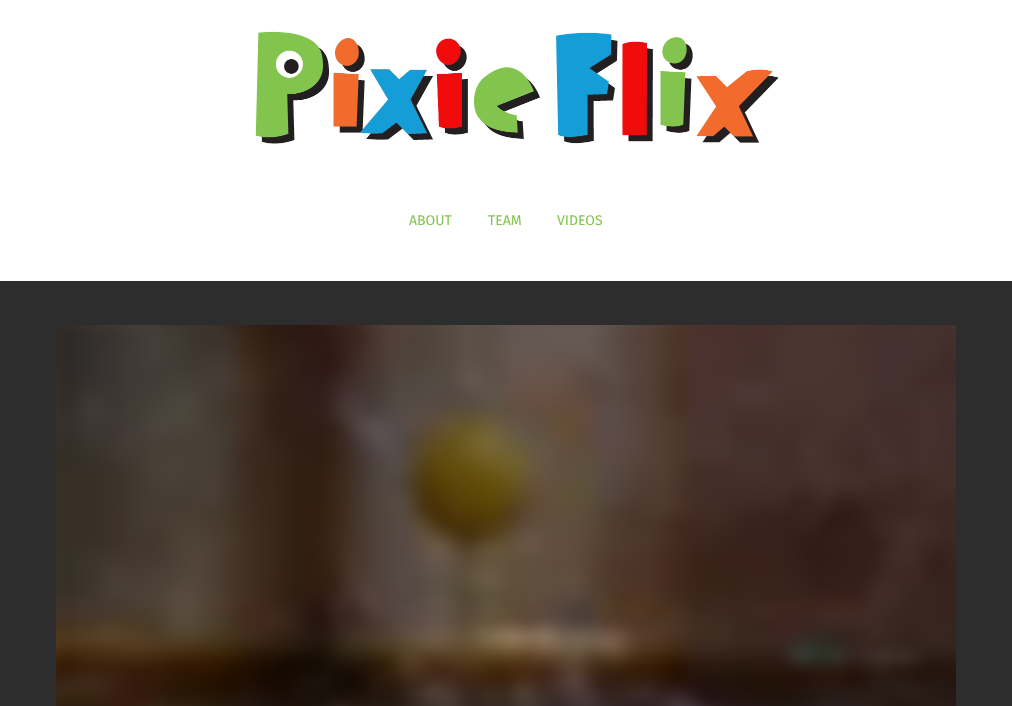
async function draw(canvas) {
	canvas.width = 1012;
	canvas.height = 706;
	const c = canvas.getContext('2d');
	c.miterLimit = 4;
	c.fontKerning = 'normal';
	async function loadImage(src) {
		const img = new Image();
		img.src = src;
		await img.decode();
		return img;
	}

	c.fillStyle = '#fff';
	c.fillRect(0, 0, 1012, 706);
	c.drawImage(await loadImage('img1.png'), 255, 31, 524, 113);
	c.font = '14px Fira Sans';
	c.fillStyle = '#83c44e';
	for (const [text, x, y] of [
		['ABOUT', 409, 225],
		['TEAM', 488, 225],
		['VIDEOS', 557, 225],
	]) {
		c.fillText(text, x, y);
	}
	c.fillStyle = '#2d2d2d';
	c.fillRect(0, 281, 1012, 425);
	c.drawImage(await loadImage('img2.png'), 56, 325, 900, 381);
}

draw(document.querySelector('canvas'));
